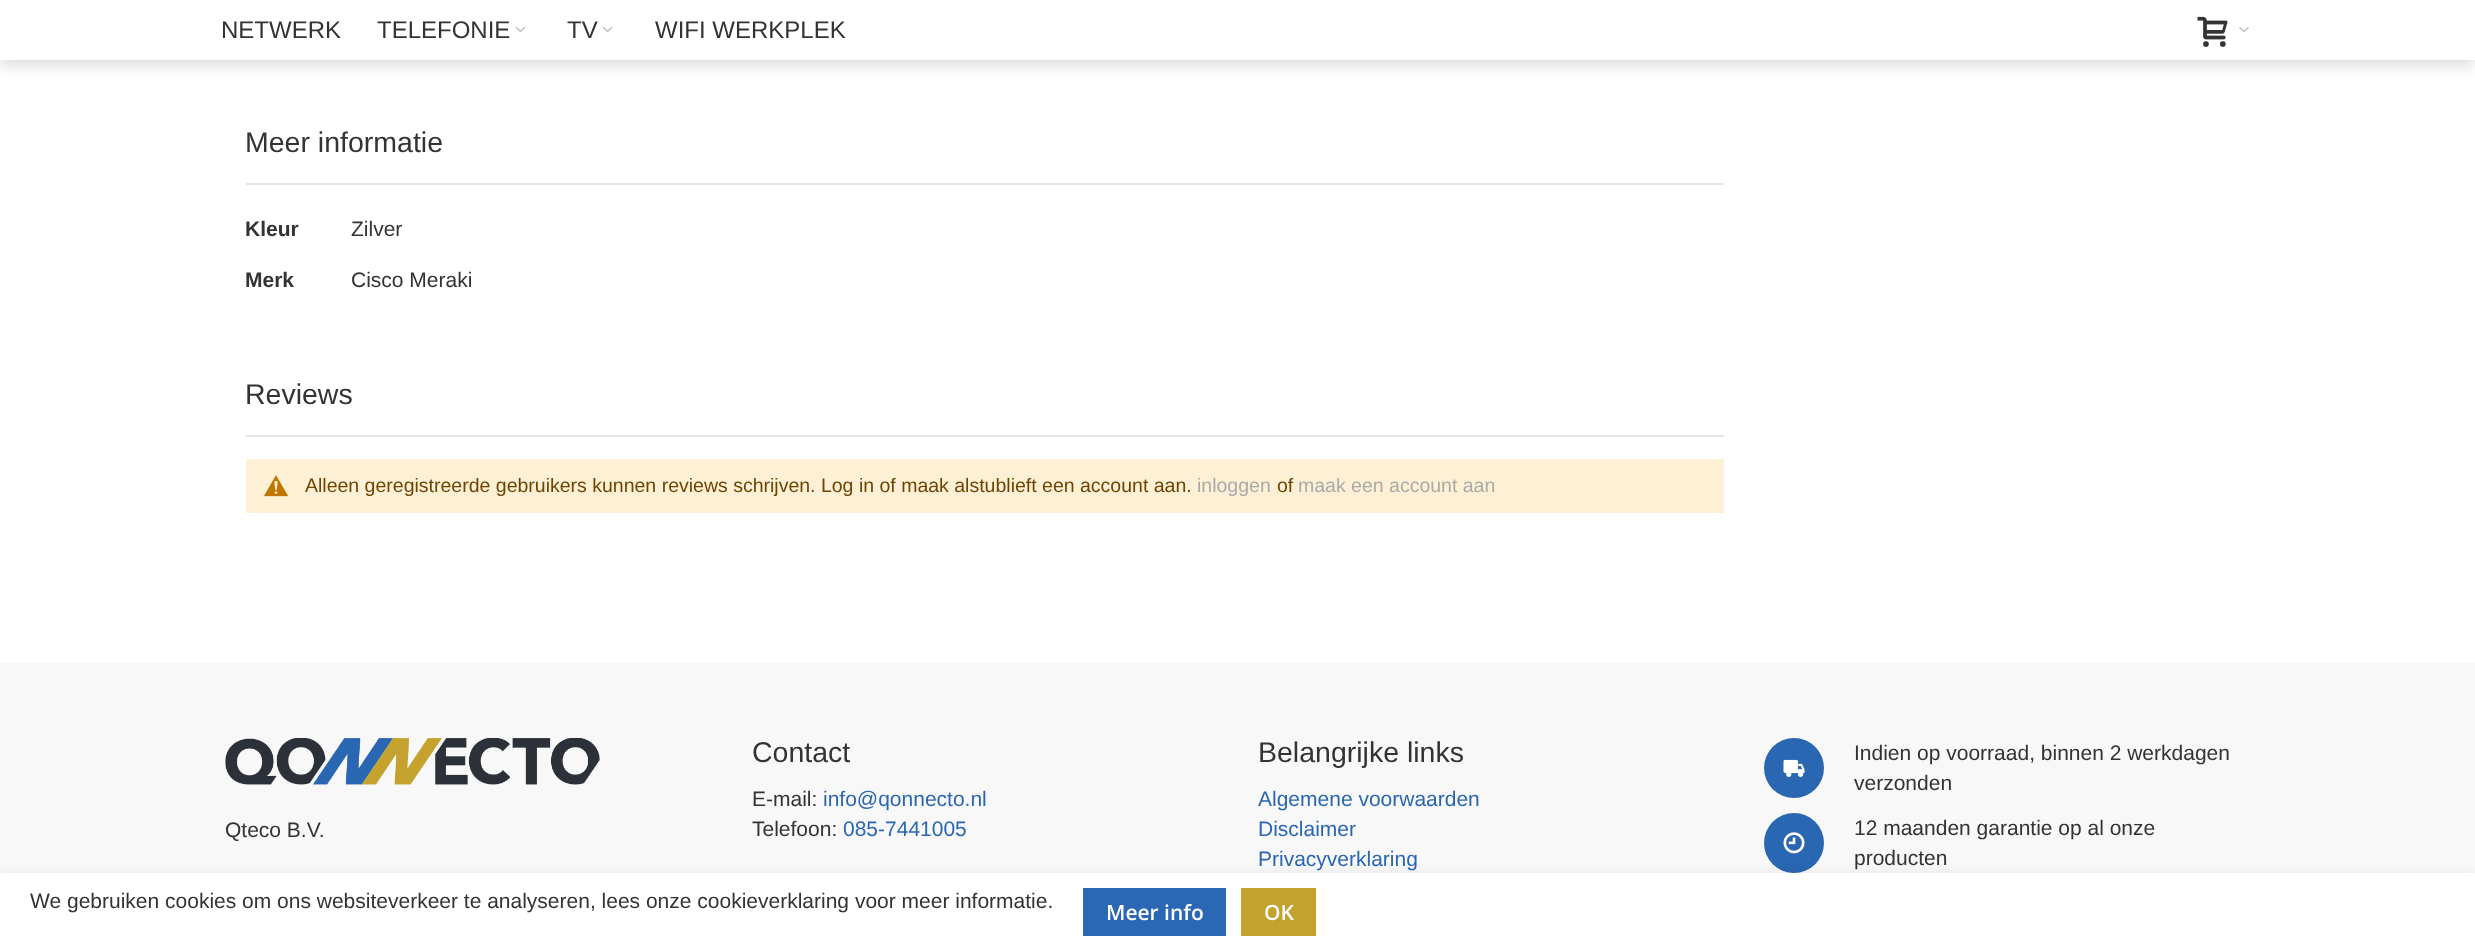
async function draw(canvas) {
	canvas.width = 2475;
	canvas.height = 950;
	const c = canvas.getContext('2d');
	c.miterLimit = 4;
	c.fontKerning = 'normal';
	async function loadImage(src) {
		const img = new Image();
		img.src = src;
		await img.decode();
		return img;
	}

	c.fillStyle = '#fff';
	c.fillRect(0, 0, 2475, 950);
	c.fillStyle = '#00000026';
	c.filter = 'blur(7.5px)';
	c.beginPath();
	c.rect(0, 5, 2475, 60);
	c.fill();
	c.filter = 'none';
	c.fillStyle = '#fff';
	c.fillRect(0, 0, 2475, 60);
	c.font = '24px Liberation Sans';
	c.fillStyle = '#333';
	c.fillText('NETWERK', 221, 38);
	c.fillText('TELEFONIE', 377, 38);
	c.drawImage(await loadImage('img1.png'), 515, 26, 11, 7);
	c.fillText('TV', 567, 38);
	c.drawImage(await loadImage('img1.png'), 602, 26, 11, 7);
	c.fillText('WIFI WERKPLEK', 655, 38);
	c.drawImage(await loadImage('img2.png'), 2197, 16, 31, 31);
	c.drawImage(await loadImage('img3.png'), 2239, 27, 10, 6);
	c.fillStyle = '#e5e5e5';
	c.fillRect(246, 183, 1478, 2);
	c.font = '28.5px Liberation Sans';
	c.fillStyle = '#333';
	c.fillText('Meer informatie', 245, 152);
	c.font = 'bold 21px Liberation Sans';
	c.fillText('Kleur', 245, 236);
	c.font = '21px Liberation Sans';
	c.fillText('Zilver', 351, 236);
	c.font = 'bold 21px Liberation Sans';
	c.fillText('Merk', 245, 287);
	c.font = '21px Liberation Sans';
	c.fillText('Cisco Meraki', 351, 287);
	c.fillStyle = '#e5e5e5';
	c.fillRect(246, 435, 1478, 2);
	c.font = '28.5px Liberation Sans';
	c.fillStyle = '#333';
	c.fillText('Reviews', 245, 404);
	c.fillStyle = '#fdf0d5';
	c.fillRect(246, 459, 1478, 54);
	c.drawImage(await loadImage('img4.png'), 264, 475, 24, 22);
	c.font = '19.5px Liberation Sans';
	c.fillStyle = '#6f4400';
	c.fillText('Alleen geregistreerde gebruikers kunnen reviews schrijven. Log in of maak alstublieft een account aan.', 305, 492);
	c.fillStyle = '#aaa';
	c.fillText('inloggen', 1197, 492);
	c.fillStyle = '#6f4400';
	c.fillText('of', 1277, 492);
	c.fillStyle = '#aaa';
	c.fillText('maak een account aan', 1298, 492);
	c.fillStyle = '#f8f8f8';
	c.fillRect(0, 663, 2475, 210);
	c.drawImage(await loadImage('img5.png'), 225, 738, 375, 47);
	c.font = '21px Liberation Sans';
	c.fillStyle = '#333';
	c.fillText('Qteco B.V.', 225, 837);
	c.font = '28.5px Liberation Sans';
	c.fillText('Contact', 752, 762);
	c.font = '21px Liberation Sans';
	c.fillText('E-mail:', 752, 806);
	c.fillStyle = '#2a67b2';
	c.fillText('info@qonnecto.nl', 823, 806);
	c.fillStyle = '#333';
	c.fillText('Telefoon:', 752, 836);
	c.fillStyle = '#2a67b2';
	c.fillText('085-7441005', 843, 836);
	c.font = '28.5px Liberation Sans';
	c.fillStyle = '#333';
	c.fillText('Belangrijke links', 1258, 762);
	c.font = '21px Liberation Sans';
	c.fillStyle = '#2a67b2';
	for (const [text, x, y] of [
		['Algemene voorwaarden', 1258, 806],
		['Disclaimer', 1258, 836],
		['Privacyverklaring', 1258, 866],
	]) {
		c.fillText(text, x, y);
	}
	c.beginPath();
	c.arc(1794, 768, 30, 0, 2 * Math.PI);
	c.fill();
	c.drawImage(await loadImage('img6.png'), 1783, 759, 22, 18);
	c.fillStyle = '#333';
	c.fillText('Indien op voorraad, binnen 2 werkdagen', 1854, 760);
	c.fillText('verzonden', 1854, 790);
	c.fillStyle = '#2a67b2';
	c.beginPath();
	c.arc(1794, 843, 30, 0, 2 * Math.PI);
	c.fill();
	c.drawImage(await loadImage('img7.png'), 1783, 832, 22, 22);
	c.fillStyle = '#333';
	c.fillText('12 maanden garantie op al onze', 1854, 835);
	c.fillText('producten', 1854, 865);
	c.fillStyle = '#00000026';
	c.filter = 'blur(7.5px)';
	c.beginPath();
	c.rect(0, 878, 2475, 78);
	c.fill();
	c.filter = 'none';
	c.fillStyle = '#fff';
	c.fillRect(0, 873, 2475, 77);
	c.fillStyle = '#333';
	c.fillText('We gebruiken cookies om ons websiteverkeer te analyseren, lees onze cookieverklaring voor meer informatie.', 30, 908);
	c.fillStyle = '#2a67b5';
	c.fillRect(1083, 888, 143, 48);
	c.font = '600 21px Open Sans';
	c.fillStyle = '#fff';
	c.fillText('Meer info', 1106, 920);
	c.fillStyle = '#c5a22d';
	c.fillRect(1241, 888, 75, 48);
	c.fillStyle = '#fff';
	c.fillText('OK', 1264, 920);
}

draw(document.querySelector('canvas'));
